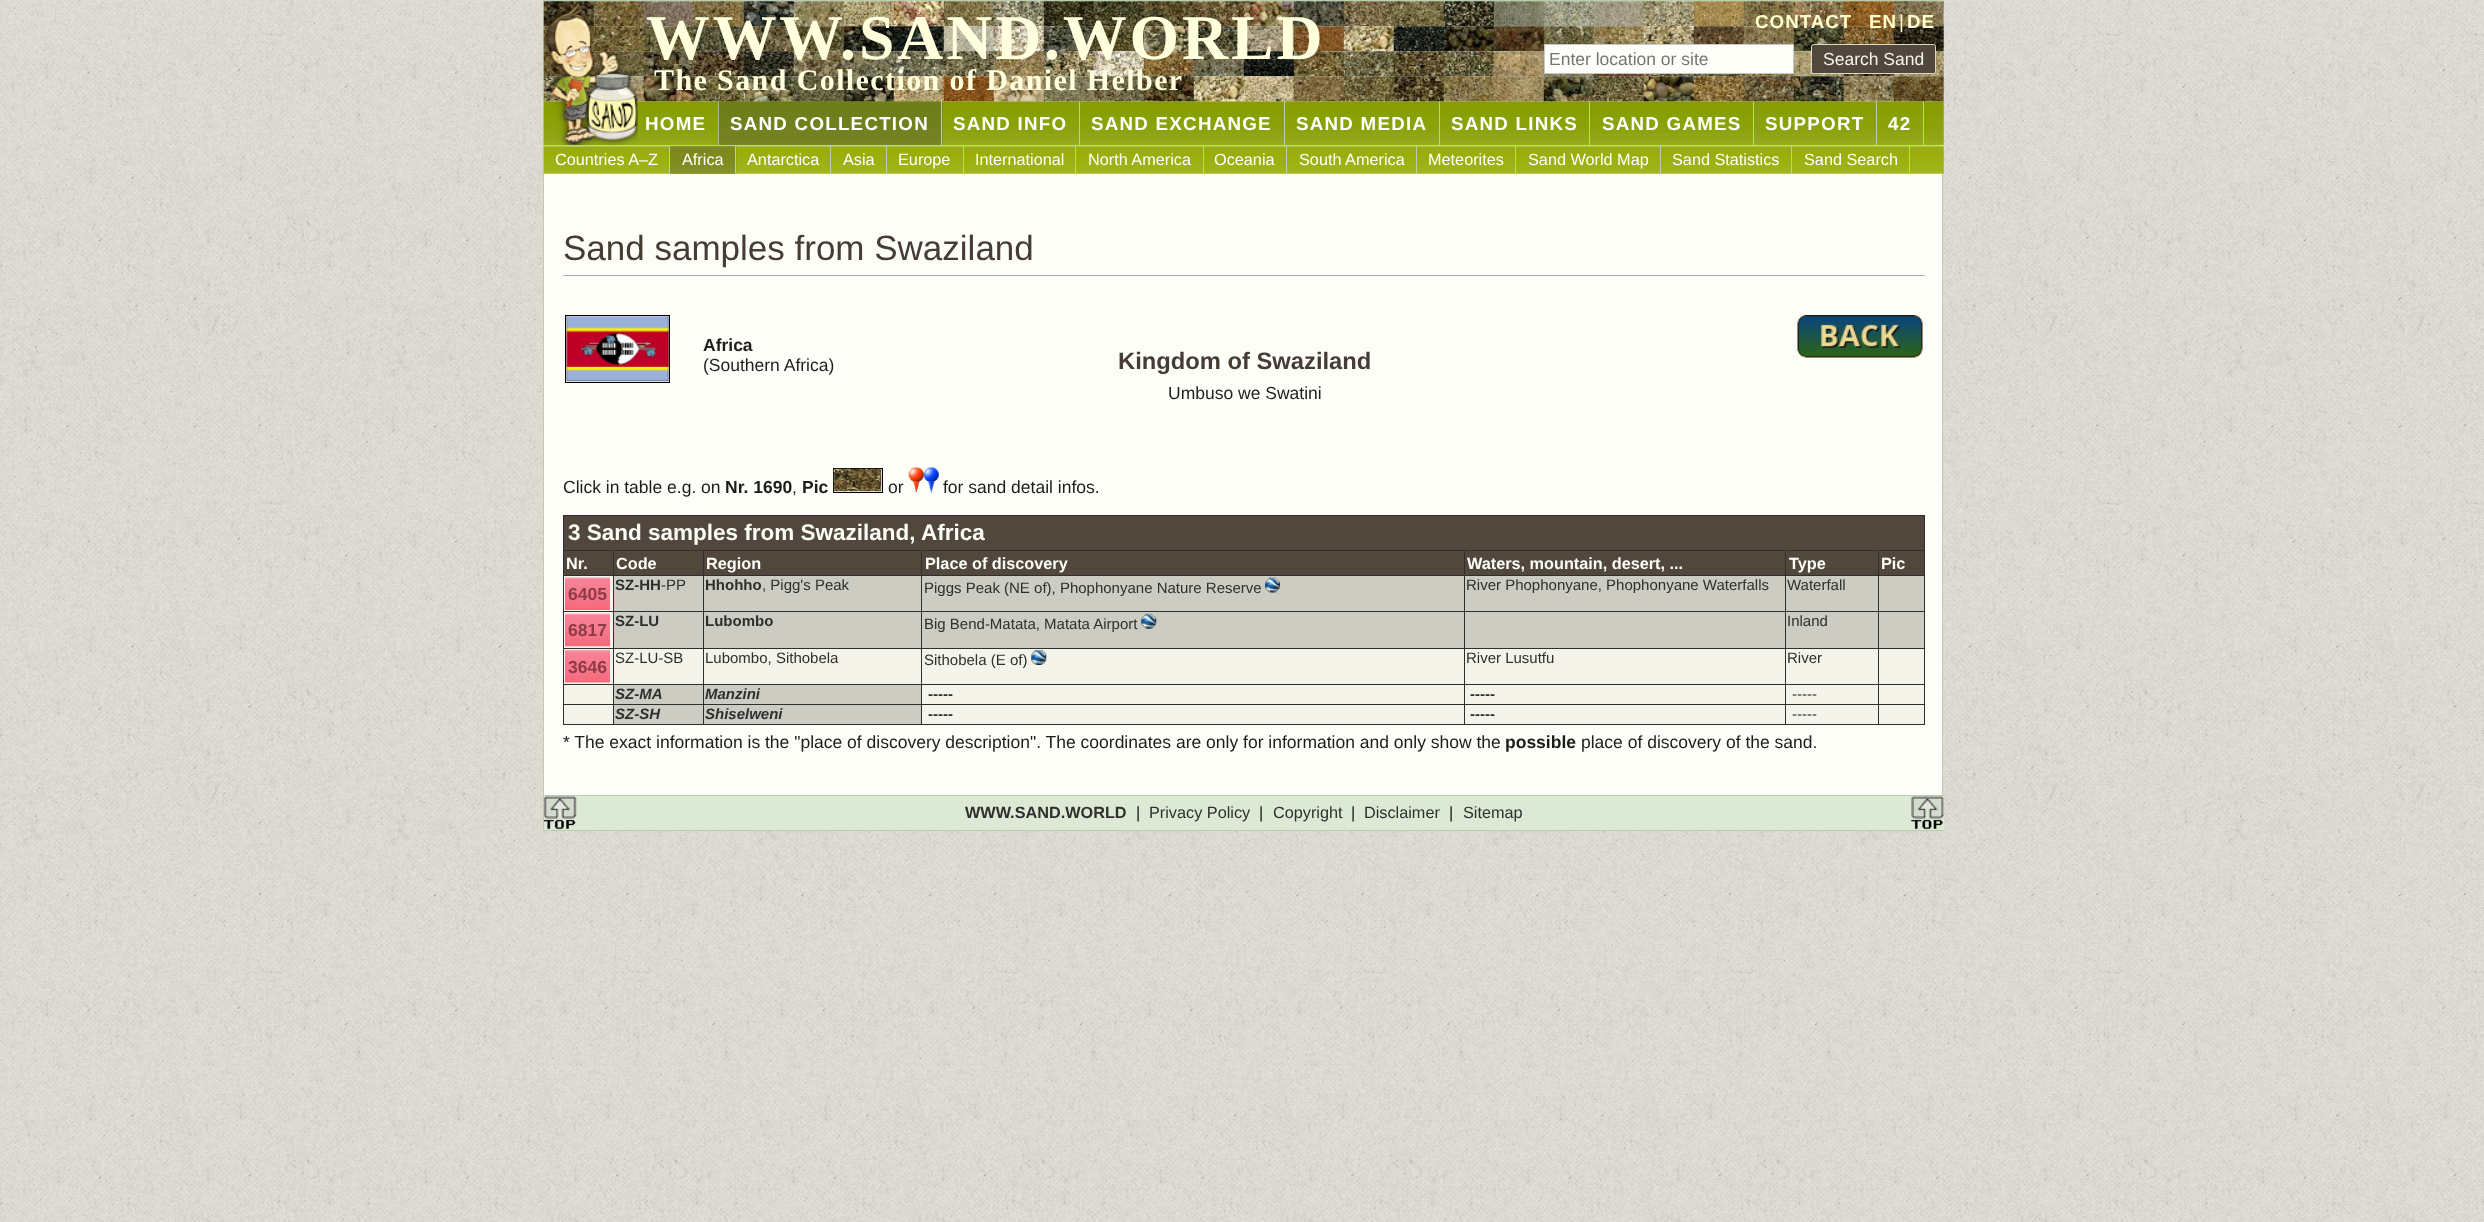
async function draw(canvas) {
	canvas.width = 2484;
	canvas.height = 1222;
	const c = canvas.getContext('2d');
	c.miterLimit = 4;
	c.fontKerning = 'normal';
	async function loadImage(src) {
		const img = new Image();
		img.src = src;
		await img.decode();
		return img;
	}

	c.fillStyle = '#fff';
	c.fillRect(0, 0, 2484, 1222);
	c.drawImage(await loadImage('img1.png'), 0, 0, 2484, 1222);
	c.fillStyle = '#fefef8';
	c.fillRect(544, 101, 1398, 694);
	c.strokeStyle = '#b8d0aa';
	c.strokeRect(543.5, 0.5, 1399, 830);
	c.fillStyle = '#eee';
	c.fillRect(544, 1, 1400, 100);
	c.drawImage(await loadImage('img2.png'), 543, 1, 1401, 26);
	c.drawImage(await loadImage('img4.png'), 543, 26, 1401, 26);
	c.drawImage(await loadImage('img5.png'), 543, 51, 1401, 26);
	c.drawImage(await loadImage('img7.png'), 543, 101, 1401, 44);
	c.fillStyle = '#b8d0aa';
	c.fillRect(718, 101, 1, 44);
	c.drawImage(await loadImage('img8.png'), 718, 101, 225, 44);
	for (const [x, y, w, h, color] of [
		[941, 101, 1, 44, '#b8d0aa'],
		[1079, 101, 1, 44, '#b8d0aa'],
		[1284, 101, 1, 44, '#b8d0aa'],
		[1439, 101, 1, 44, '#b8d0aa'],
		[1589, 101, 1, 44, '#b8d0aa'],
		[1753, 101, 1, 44, '#b8d0aa'],
		[1876, 101, 1, 44, '#b8d0aa'],
		[1923, 101, 1, 44, '#b8d0aa'],
	]) {
		c.fillStyle = color;
		c.fillRect(x, y, w, h);
	}
	c.drawImage(await loadImage('img6.png'), 543, 76, 1401, 26);
	c.drawImage(await loadImage('img3.png'), 543, 1, 95, 144);
	c.letterSpacing = '2.9px';
	c.font = 'bold 63.75px Liberation Serif';
	c.fillStyle = '#ffd';
	c.fillText('WWW.SAND.WORLD', 646, 59);
	c.letterSpacing = '1px';
	c.font = 'bold 18.75px Liberation Sans';
	c.fillStyle = '#ffc';
	c.fillText('CONTACT', 1755, 28);
	c.fillText('EN', 1869, 28);
	c.font = '18.75px Liberation Sans';
	c.fillText('|', 1899, 28);
	c.font = 'bold 18.75px Liberation Sans';
	c.fillText('DE', 1907, 28);
	c.fillStyle = '#fefef8';
	c.beginPath();
	c.rect(1544.5, 44.5, 249, 29);
	c.fill();
	c.strokeStyle = '#c8c8c8';
	c.stroke();
	c.letterSpacing = '0px';
	c.font = '17.5px Liberation Sans';
	c.fillStyle = '#757575';
	c.fillText('Enter location or site', 1549, 65);
	c.fillStyle = '#51473d';
	c.beginPath();
	c.roundRect(1811.5, 44.5, 124, 29, 2);
	c.fill();
	c.strokeStyle = '#d9d9c0';
	c.stroke();
	c.fillStyle = '#f4f4ea';
	c.fillText('Search Sand', 1823, 65);
	c.letterSpacing = '1.4px';
	c.font = 'bold 30px Liberation Serif';
	c.fillStyle = '#ffd';
	c.fillText('The Sand Collection of Daniel Helber', 654, 90);
	c.letterSpacing = '1.25px';
	c.font = 'bold 18.75px Liberation Sans';
	c.fillStyle = '#fff';
	for (const [text, x, y] of [
		['HOME', 645, 130],
		['SAND COLLECTION', 730, 130],
		['SAND INFO', 953, 130],
		['SAND EXCHANGE', 1091, 130],
		['SAND MEDIA', 1296, 130],
		['SAND LINKS', 1451, 130],
		['SAND GAMES', 1602, 130],
		['SUPPORT', 1765, 130],
		['42', 1888, 130],
	]) {
		c.fillText(text, x, y);
	}
	c.fillStyle = '#b8d0aa';
	c.fillRect(544, 145, 1397, 1);
	c.drawImage(await loadImage('img9.png'), 543, 146, 1401, 28);
	c.fillRect(669, 146, 1, 28);
	c.letterSpacing = '0px';
	c.font = '16.25px Liberation Sans';
	c.fillStyle = '#fff';
	c.fillText('Countries A–Z', 555, 165);
	c.drawImage(await loadImage('img10.png'), 670, 146, 67, 28);
	c.fillStyle = '#b8d0aa';
	c.fillRect(735, 146, 1, 28);
	c.fillStyle = '#fff';
	c.fillText('Africa', 682, 165);
	c.fillStyle = '#b8d0aa';
	c.fillRect(830, 146, 1, 28);
	c.fillStyle = '#fff';
	c.fillText('Antarctica', 747, 165);
	c.fillStyle = '#b8d0aa';
	c.fillRect(886, 146, 1, 28);
	c.fillStyle = '#fff';
	c.fillText('Asia', 843, 165);
	c.fillStyle = '#b8d0aa';
	c.fillRect(963, 146, 1, 28);
	c.fillStyle = '#fff';
	c.fillText('Europe', 898, 165);
	c.fillStyle = '#b8d0aa';
	c.fillRect(1075, 146, 1, 28);
	c.fillStyle = '#fff';
	c.fillText('International', 975, 165);
	c.fillStyle = '#b8d0aa';
	c.fillRect(1203, 146, 1, 28);
	c.fillStyle = '#fff';
	c.fillText('North America', 1088, 165);
	c.fillStyle = '#b8d0aa';
	c.fillRect(1286, 146, 1, 28);
	c.fillStyle = '#fff';
	c.fillText('Oceania', 1214, 165);
	c.fillStyle = '#b8d0aa';
	c.fillRect(1416, 146, 1, 28);
	c.fillStyle = '#fff';
	c.fillText('South America', 1299, 165);
	c.fillStyle = '#b8d0aa';
	c.fillRect(1515, 146, 1, 28);
	c.fillStyle = '#fff';
	c.fillText('Meteorites', 1428, 165);
	c.fillStyle = '#b8d0aa';
	c.fillRect(1660, 146, 1, 28);
	c.fillStyle = '#fff';
	c.fillText('Sand World Map', 1528, 165);
	c.fillStyle = '#b8d0aa';
	c.fillRect(1791, 146, 1, 28);
	c.fillStyle = '#fff';
	c.fillText('Sand Statistics', 1672, 165);
	c.fillStyle = '#b8d0aa';
	c.fillRect(1909, 146, 1, 28);
	c.fillStyle = '#fff';
	c.fillText('Sand Search', 1804, 165);
	c.fillStyle = '#afafaf';
	c.fillRect(563, 275, 1362, 1);
	c.font = '35px Liberation Sans';
	c.fillStyle = '#453c34';
	c.fillText('Sand samples from Swaziland', 563, 260);
	c.strokeStyle = '#000';
	c.strokeRect(565.5, 315.5, 104, 67);
	c.drawImage(await loadImage('img11.png'), 566, 316, 103, 66);
	c.font = 'bold 17.5px Liberation Sans';
	c.fillStyle = '#221e1d';
	c.fillText('Africa', 703, 351);
	c.font = '17.5px Liberation Sans';
	c.fillText('(Southern Africa)', 703, 371);
	c.font = 'bold 23.75px Liberation Sans';
	c.fillStyle = '#453c34';
	c.fillText('Kingdom of Swaziland', 1118, 369);
	c.font = '17.5px Liberation Sans';
	c.fillStyle = '#221e1d';
	c.fillText('Umbuso we Swatini', 1168, 399);
	c.drawImage(await loadImage('img12.png'), 1797, 315, 126, 43);
	c.strokeRect(833.5, 468.5, 49, 24);
	c.drawImage(await loadImage('img13.png'), 908, 467, 16, 26);
	c.drawImage(await loadImage('img14.png'), 923, 467, 16, 26);
	c.fillStyle = '#191e1d';
	c.fillText('Click in table e.g. on', 563, 493);
	c.font = 'bold 17.5px Liberation Sans';
	c.fillText('Nr. 1690', 725, 493);
	c.font = '17.5px Liberation Sans';
	c.fillText(',', 792, 493);
	c.font = 'bold 17.5px Liberation Sans';
	c.fillText('Pic', 802, 493);
	c.drawImage(await loadImage('img15.png'), 833, 468, 49, 24);
	c.font = '17.5px Liberation Sans';
	c.fillText('or', 888, 493);
	c.fillText('for sand detail infos.', 943, 493);
	for (const [x, y, w, h, color] of [
		[564, 516, 1360, 34, '#51473d'],
		[563, 515, 1362, 1, '#2f2f2f'],
		[1878, 550, 47, 1, '#2f2f2f'],
		[1878, 575, 47, 1, '#2f2f2f'],
		[1879, 576, 45, 72, '#ccccc2'],
		[1878, 611, 47, 1, '#2f2f2f'],
		[1878, 648, 47, 1, '#2f2f2f'],
		[1878, 684, 47, 1, '#2f2f2f'],
		[1878, 704, 47, 1, '#2f2f2f'],
		[1924, 704, 1, 21, '#2f2f2f'],
		[1924, 684, 1, 21, '#2f2f2f'],
		[1924, 648, 1, 37, '#2f2f2f'],
		[1924, 611, 1, 38, '#2f2f2f'],
		[1924, 575, 1, 38, '#2f2f2f'],
		[1924, 550, 1, 26, '#2f2f2f'],
		[1924, 515, 1, 36, '#2f2f2f'],
		[1786, 576, 92, 72, '#ccccc2'],
		[1878, 724, 47, 1, '#2f2f2f'],
		[1878, 704, 1, 21, '#2f2f2f'],
		[1785, 704, 94, 1, '#2f2f2f'],
		[1878, 684, 1, 21, '#2f2f2f'],
		[1785, 684, 94, 1, '#2f2f2f'],
		[1878, 648, 1, 37, '#2f2f2f'],
		[1785, 648, 94, 1, '#2f2f2f'],
		[1878, 611, 1, 38, '#2f2f2f'],
		[1785, 611, 94, 1, '#2f2f2f'],
		[1878, 575, 1, 38, '#2f2f2f'],
		[1785, 575, 94, 1, '#2f2f2f'],
		[1878, 550, 1, 26, '#2f2f2f'],
		[1785, 550, 94, 1, '#2f2f2f'],
		[1465, 576, 320, 72, '#ccccc2'],
		[1785, 724, 94, 1, '#2f2f2f'],
		[1785, 704, 1, 21, '#2f2f2f'],
		[1464, 704, 322, 1, '#2f2f2f'],
		[1785, 684, 1, 21, '#2f2f2f'],
		[1464, 684, 322, 1, '#2f2f2f'],
		[1785, 648, 1, 37, '#2f2f2f'],
		[1464, 648, 322, 1, '#2f2f2f'],
		[1785, 611, 1, 38, '#2f2f2f'],
		[1464, 611, 322, 1, '#2f2f2f'],
		[1785, 575, 1, 38, '#2f2f2f'],
		[1464, 575, 322, 1, '#2f2f2f'],
		[1785, 550, 1, 26, '#2f2f2f'],
		[1464, 550, 322, 1, '#2f2f2f'],
		[922, 576, 542, 72, '#ccccc2'],
		[1464, 724, 322, 1, '#2f2f2f'],
		[1464, 704, 1, 21, '#2f2f2f'],
		[921, 704, 544, 1, '#2f2f2f'],
		[1464, 684, 1, 21, '#2f2f2f'],
		[921, 684, 544, 1, '#2f2f2f'],
		[1464, 648, 1, 37, '#2f2f2f'],
		[921, 648, 544, 1, '#2f2f2f'],
		[1464, 611, 1, 38, '#2f2f2f'],
		[921, 611, 544, 1, '#2f2f2f'],
		[1464, 575, 1, 38, '#2f2f2f'],
		[921, 575, 544, 1, '#2f2f2f'],
		[1464, 550, 1, 26, '#2f2f2f'],
		[921, 550, 544, 1, '#2f2f2f'],
		[704, 576, 217, 72, '#ccccc2'],
		[921, 724, 544, 1, '#2f2f2f'],
		[921, 704, 1, 21, '#2f2f2f'],
		[703, 704, 220, 1, '#2f2f2f'],
		[921, 684, 1, 21, '#2f2f2f'],
		[703, 684, 220, 1, '#2f2f2f'],
		[921, 648, 1, 37, '#2f2f2f'],
		[703, 648, 220, 1, '#2f2f2f'],
		[921, 611, 1, 38, '#2f2f2f'],
		[703, 611, 220, 1, '#2f2f2f'],
		[921, 575, 1, 38, '#2f2f2f'],
		[703, 575, 220, 1, '#2f2f2f'],
		[921, 550, 1, 26, '#2f2f2f'],
		[703, 550, 220, 1, '#2f2f2f'],
		[614, 576, 89, 72, '#ccccc2'],
		[703, 724, 220, 1, '#2f2f2f'],
		[703, 704, 1, 21, '#2f2f2f'],
		[613, 704, 91, 1, '#2f2f2f'],
		[703, 684, 1, 21, '#2f2f2f'],
		[613, 684, 91, 1, '#2f2f2f'],
		[703, 648, 1, 37, '#2f2f2f'],
		[613, 648, 91, 1, '#2f2f2f'],
		[703, 611, 1, 38, '#2f2f2f'],
		[613, 611, 91, 1, '#2f2f2f'],
		[703, 575, 1, 38, '#2f2f2f'],
		[613, 575, 91, 1, '#2f2f2f'],
		[703, 550, 1, 26, '#2f2f2f'],
		[613, 550, 91, 1, '#2f2f2f'],
		[564, 576, 49, 72, '#f4f4ea'],
		[613, 724, 91, 1, '#2f2f2f'],
		[613, 704, 1, 21, '#2f2f2f'],
		[563, 704, 51, 1, '#2f2f2f'],
		[613, 684, 1, 21, '#2f2f2f'],
		[563, 684, 51, 1, '#2f2f2f'],
		[613, 648, 1, 37, '#2f2f2f'],
		[563, 648, 51, 1, '#2f2f2f'],
		[613, 611, 1, 38, '#2f2f2f'],
		[563, 611, 51, 1, '#2f2f2f'],
		[613, 575, 1, 38, '#2f2f2f'],
		[563, 575, 51, 1, '#2f2f2f'],
		[613, 550, 1, 26, '#2f2f2f'],
		[563, 550, 51, 1, '#2f2f2f'],
		[563, 724, 51, 1, '#2f2f2f'],
		[563, 704, 1, 21, '#2f2f2f'],
		[563, 684, 1, 21, '#2f2f2f'],
		[563, 648, 1, 37, '#2f2f2f'],
		[563, 611, 1, 38, '#2f2f2f'],
		[563, 575, 1, 38, '#2f2f2f'],
		[563, 550, 1, 26, '#2f2f2f'],
		[563, 515, 1, 36, '#2f2f2f'],
	]) {
		c.fillStyle = color;
		c.fillRect(x, y, w, h);
	}
	c.font = 'bold 22.5px Liberation Sans';
	c.fillStyle = '#fefef8';
	c.fillText('3 Sand samples from Swaziland, Africa', 568, 540);
	c.fillStyle = '#51473d';
	c.fillRect(564, 551, 49, 24);
	c.font = 'bold 16.25px Liberation Sans';
	c.fillStyle = '#fefef8';
	c.fillText('Nr.', 566, 569);
	c.fillStyle = '#51473d';
	c.fillRect(614, 551, 89, 24);
	c.fillStyle = '#fefef8';
	c.fillText('Code', 616, 569);
	c.fillStyle = '#51473d';
	c.fillRect(704, 551, 217, 24);
	c.fillStyle = '#fefef8';
	c.fillText('Region', 706, 569);
	c.fillStyle = '#51473d';
	c.fillRect(922, 551, 542, 24);
	c.fillStyle = '#fefef8';
	c.fillText('Place of discovery', 925, 569);
	c.fillStyle = '#51473d';
	c.fillRect(1465, 551, 320, 24);
	c.fillStyle = '#fefef8';
	c.fillText('Waters, mountain, desert, ...', 1467, 569);
	c.fillStyle = '#51473d';
	c.fillRect(1786, 551, 92, 24);
	c.fillStyle = '#fefef8';
	c.fillText('Type', 1789, 569);
	c.fillStyle = '#51473d';
	c.fillRect(1879, 551, 45, 24);
	c.fillStyle = '#fefef8';
	c.fillText('Pic', 1881, 569);
	c.drawImage(await loadImage('img16.png'), 565, 577, 45, 33);
	c.font = 'bold 17.5px Liberation Sans';
	c.fillStyle = '#8c3c46';
	c.fillText('6405', 568, 600);
	c.font = 'bold 15px Liberation Sans';
	c.fillStyle = '#2f2f2f';
	c.fillText('SZ-HH', 615, 590);
	c.font = '15px Liberation Sans';
	c.fillText('-PP', 661, 590);
	c.font = 'bold 15px Liberation Sans';
	c.fillText('Hhohho', 705, 590);
	c.font = '15px Liberation Sans';
	c.fillText(', Pigg\'s Peak', 762, 590);
	c.fillText('Piggs Peak (NE of), Phophonyane Nature Reserve', 924, 593);
	c.drawImage(await loadImage('img17.png'), 1265, 577, 15, 16);
	c.fillText('River Phophonyane, Phophonyane Waterfalls', 1466, 590);
	c.fillText('Waterfall', 1787, 590);
	c.drawImage(await loadImage('img18.png'), 565, 613, 45, 34);
	c.font = 'bold 17.5px Liberation Sans';
	c.fillStyle = '#8c3c46';
	c.fillText('6817', 568, 636);
	c.font = 'bold 15px Liberation Sans';
	c.fillStyle = '#2f2f2f';
	c.fillText('SZ-LU', 615, 626);
	c.fillText('Lubombo', 705, 626);
	c.font = '15px Liberation Sans';
	c.fillText('Big Bend-Matata, Matata Airport', 924, 629);
	c.drawImage(await loadImage('img19.png'), 1141, 613, 16, 16);
	c.fillText('Inland', 1787, 626);
	c.fillStyle = '#f4f4ea';
	c.fillRect(564, 649, 49, 35);
	c.drawImage(await loadImage('img20.png'), 565, 650, 45, 33);
	c.font = 'bold 17.5px Liberation Sans';
	c.fillStyle = '#8c3c46';
	c.fillText('3646', 568, 673);
	c.fillStyle = '#f4f4ea';
	c.fillRect(614, 649, 89, 35);
	c.font = '15px Liberation Sans';
	c.fillStyle = '#2f2f2f';
	c.fillText('SZ-LU-SB', 615, 663);
	c.fillStyle = '#f4f4ea';
	c.fillRect(704, 649, 217, 35);
	c.fillStyle = '#2f2f2f';
	c.fillText('Lubombo, Sithobela', 705, 663);
	c.fillStyle = '#f4f4ea';
	c.fillRect(922, 649, 542, 35);
	c.fillStyle = '#2f2f2f';
	c.fillText('Sithobela (E of)', 924, 665);
	c.drawImage(await loadImage('img21.png'), 1031, 650, 16, 15);
	c.fillStyle = '#f4f4ea';
	c.fillRect(1465, 649, 320, 35);
	c.fillStyle = '#2f2f2f';
	c.fillText('River Lusutfu', 1466, 663);
	c.fillStyle = '#f4f4ea';
	c.fillRect(1786, 649, 92, 35);
	c.fillStyle = '#2f2f2f';
	c.fillText('River', 1787, 663);
	for (const [x, y, w, h, color] of [
		[1879, 649, 45, 35, '#f4f4ea'],
		[564, 685, 49, 19, '#f4f4ea'],
		[614, 685, 89, 19, '#ccccc2'],
	]) {
		c.fillStyle = color;
		c.fillRect(x, y, w, h);
	}
	c.font = 'italic bold 15px Liberation Sans';
	c.fillStyle = '#2f2f2f';
	c.fillText('SZ-MA', 615, 699);
	c.fillStyle = '#ccccc2';
	c.fillRect(704, 685, 217, 19);
	c.fillStyle = '#2f2f2f';
	c.fillText('Manzini', 705, 699);
	c.fillStyle = '#f4f4ea';
	c.fillRect(922, 685, 542, 19);
	c.font = 'bold 15px Liberation Sans';
	c.fillStyle = '#2f2f2f';
	c.fillText('-----', 928, 699);
	c.fillStyle = '#f4f4ea';
	c.fillRect(1465, 685, 320, 19);
	c.fillStyle = '#2f2f2f';
	c.fillText('-----', 1470, 699);
	c.fillStyle = '#f4f4ea';
	c.fillRect(1786, 685, 92, 19);
	c.font = '15px Liberation Sans';
	c.fillStyle = '#2f2f2f';
	c.fillText('-----', 1792, 699);
	for (const [x, y, w, h, color] of [
		[1879, 685, 45, 19, '#f4f4ea'],
		[564, 705, 49, 19, '#f4f4ea'],
		[614, 705, 89, 19, '#ccccc2'],
	]) {
		c.fillStyle = color;
		c.fillRect(x, y, w, h);
	}
	c.font = 'italic bold 15px Liberation Sans';
	c.fillStyle = '#2f2f2f';
	c.fillText('SZ-SH', 615, 719);
	c.fillStyle = '#ccccc2';
	c.fillRect(704, 705, 217, 19);
	c.fillStyle = '#2f2f2f';
	c.fillText('Shiselweni', 705, 719);
	c.fillStyle = '#f4f4ea';
	c.fillRect(922, 705, 542, 19);
	c.font = 'bold 15px Liberation Sans';
	c.fillStyle = '#2f2f2f';
	c.fillText('-----', 928, 719);
	c.fillStyle = '#f4f4ea';
	c.fillRect(1465, 705, 320, 19);
	c.fillStyle = '#2f2f2f';
	c.fillText('-----', 1470, 719);
	c.fillStyle = '#f4f4ea';
	c.fillRect(1786, 705, 92, 19);
	c.font = '15px Liberation Sans';
	c.fillStyle = '#2f2f2f';
	c.fillText('-----', 1792, 719);
	c.fillStyle = '#f4f4ea';
	c.fillRect(1879, 705, 45, 19);
	c.font = '17.5px Liberation Sans';
	c.fillStyle = '#191e1d';
	c.fillText('* The exact information is the "place of discovery description". The coordinates are only for information and only show the', 563, 748);
	c.font = 'bold 17.5px Liberation Sans';
	c.fillText('possible', 1505, 748);
	c.font = '17.5px Liberation Sans';
	c.fillText('place of discovery of the sand.', 1581, 748);
	c.fillStyle = '#dce9d4';
	c.fillRect(544, 796, 1400, 34);
	c.fillStyle = '#b8d0aa';
	c.fillRect(544, 795, 1400, 1);
	c.drawImage(await loadImage('img22.png'), 543, 796, 34, 33);
	c.font = 'bold 16.25px Liberation Sans';
	c.fillStyle = '#2f2f2f';
	c.fillText('WWW.SAND.WORLD', 965, 818);
	c.font = '16.25px Liberation Sans';
	c.fillStyle = '#111';
	c.fillText('|', 1136, 818);
	c.fillStyle = '#2f2f2f';
	c.fillText('Privacy Policy', 1149, 818);
	c.fillStyle = '#111';
	c.fillText('|', 1259, 818);
	c.fillStyle = '#2f2f2f';
	c.fillText('Copyright', 1273, 818);
	c.fillStyle = '#111';
	c.fillText('|', 1351, 818);
	c.fillStyle = '#2f2f2f';
	c.fillText('Disclaimer', 1364, 818);
	c.fillStyle = '#111';
	c.fillText('|', 1449, 818);
	c.fillStyle = '#2f2f2f';
	c.fillText('Sitemap', 1463, 818);
	c.drawImage(await loadImage('img23.png'), 1911, 796, 33, 33);
}

draw(document.querySelector('canvas'));
